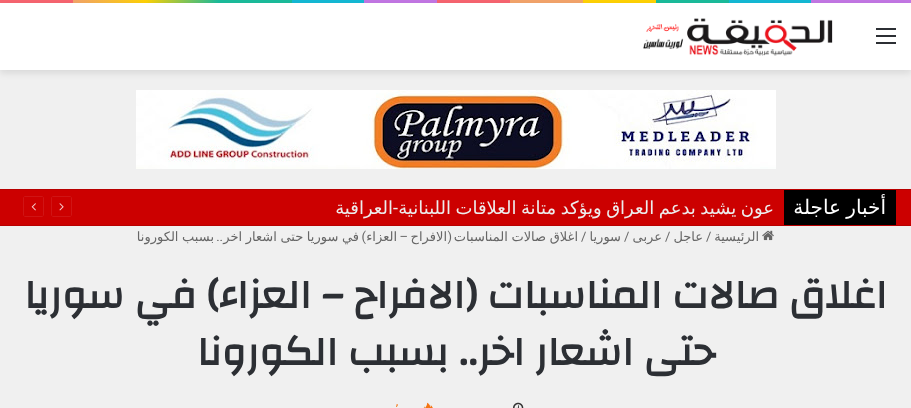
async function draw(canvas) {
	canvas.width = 911;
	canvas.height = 408;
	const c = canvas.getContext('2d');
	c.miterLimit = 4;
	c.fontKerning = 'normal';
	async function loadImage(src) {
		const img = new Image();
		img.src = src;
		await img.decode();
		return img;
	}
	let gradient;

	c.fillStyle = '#f0f0f0';
	c.fillRect(0, 0, 911, 408);
	gradient = c.createLinearGradient(0, 1.5, 911, 1.5);
	gradient.addColorStop(0, '#f76570');
	gradient.addColorStop(0.08, '#f76570');
	gradient.addColorStop(0.08, '#f3a46b');
	gradient.addColorStop(0.16, '#ffd205');
	gradient.addColorStop(0.24, '#1bbc9b');
	gradient.addColorStop(0.32, '#1bbc9b');
	gradient.addColorStop(0.32, '#14b9d5');
	gradient.addColorStop(0.4, '#14b9d5');
	gradient.addColorStop(0.4, '#c377e4');
	gradient.addColorStop(0.48, '#c377e4');
	gradient.addColorStop(0.48, '#f76570');
	gradient.addColorStop(0.56, '#f76570');
	gradient.addColorStop(0.56, '#f3a46b');
	gradient.addColorStop(0.64, '#f3a46b');
	gradient.addColorStop(0.64, '#ffd205');
	gradient.addColorStop(0.72, '#ffd205');
	gradient.addColorStop(0.72, '#1bbc9b');
	gradient.addColorStop(0.8, '#1bbc9b');
	gradient.addColorStop(0.8, '#14b9d5');
	gradient.addColorStop(0.89, '#14b9d5');
	gradient.addColorStop(0.89, '#c377e4');
	gradient.addColorStop(1, '#c377e4');
	c.fillStyle = gradient;
	c.fillRect(0, 0, 911, 3);
	c.fillStyle = '#0000001a';
	c.filter = 'blur(3.5px)';
	c.beginPath();
	c.rect(0, 6, 911, 67);
	c.fill();
	c.filter = 'none';
	for (const [x, y, w, h, color] of [
		[0, 3, 911, 67, '#fff'],
		[876, 35, 20, 2, '#2c2f34'],
		[876, 28, 20, 2, '#2c2f34'],
		[876, 42, 20, 2, '#2c2f34'],
	]) {
		c.fillStyle = color;
		c.fillRect(x, y, w, h);
	}
	c.drawImage(await loadImage('img1.png'), 643, 18, 190, 38);
	c.drawImage(await loadImage('img2.png'), 136, 90, 640, 79);
	for (const [x, y, w, h, color] of [
		[0, 190, 911, 35, '#c00'],
		[0, 189, 911, 1, '#b80000'],
		[0, 225, 911, 1, '#b80000'],
		[784, 190, 112, 35, '#000'],
	]) {
		c.fillStyle = color;
		c.fillRect(x, y, w, h);
	}
	c.wordSpacing = '-1px';
	c.direction = 'rtl';
	c.font = '20px DejaVu Sans';
	c.fillStyle = '#fff';
	c.fillText('أخبار عاجلة', 886, 214);
	c.save();
	c.beginPath();
	c.rect(335, 190, 439, 35);
	c.clip();
	c.wordSpacing = '-1.25px';
	c.font = '18px DejaVu Sans';
	c.fillStyle = '#ededed';
	c.fillText('عون يشيد بدعم العراق ويؤكد متانة العلاقات اللبنانية', 774, 214);
	c.restore();
	c.wordSpacing = '0px';
	c.font = '18px Roboto';
	c.fillStyle = '#ededed';
	c.fillText('-', 398, 214);
	c.font = '18px DejaVu Sans';
	c.fillText('العراقية', 393, 214);
	c.beginPath();
	c.moveTo(70, 216.5);
	c.lineTo(53, 216.5);
	c.bezierCurveTo(52, 216.5, 51.5, 215.5, 51.5, 215);
	c.lineTo(51.5, 198);
	c.bezierCurveTo(51.5, 197, 52, 196.5, 53, 196.5);
	c.lineTo(70, 196.5);
	c.bezierCurveTo(71, 196.5, 71.5, 197, 71.5, 198);
	c.lineTo(71.5, 215);
	c.bezierCurveTo(71.5, 215.5, 71, 216.5, 70, 216.5);
	c.closePath();
	c.strokeStyle = '#d01414';
	c.stroke();
	c.drawImage(await loadImage('img3.png'), 59, 203, 5, 8);
	c.beginPath();
	c.moveTo(42, 216.5);
	c.lineTo(25, 216.5);
	c.bezierCurveTo(24, 216.5, 23.5, 215.5, 23.5, 215);
	c.lineTo(23.5, 198);
	c.bezierCurveTo(23.5, 197, 24, 196.5, 25, 196.5);
	c.lineTo(42, 196.5);
	c.bezierCurveTo(43, 196.5, 43.5, 197, 43.5, 198);
	c.lineTo(43.5, 215);
	c.bezierCurveTo(43.5, 215.5, 43, 216.5, 42, 216.5);
	c.closePath();
	c.stroke();
	c.drawImage(await loadImage('img4.png'), 31, 203, 5, 8);
	c.drawImage(await loadImage('img5.png'), 762, 230, 12, 11);
	c.font = '13px DejaVu Sans';
	c.fillStyle = '#666';
	c.fillText('الرئيسية', 759, 241);
	c.direction = 'ltr';
	c.font = '13px Roboto';
	c.fillText('/', 706, 241);
	c.direction = 'rtl';
	c.font = '13px DejaVu Sans';
	c.fillText('عاجل', 703, 241);
	c.direction = 'ltr';
	c.font = '13px Roboto';
	c.fillText('/', 665, 241);
	c.direction = 'rtl';
	c.font = '13px DejaVu Sans';
	c.fillText('عربى', 662, 241);
	c.direction = 'ltr';
	c.font = '13px Roboto';
	c.fillText('/', 624, 241);
	c.direction = 'rtl';
	c.font = '13px DejaVu Sans';
	c.fillText('سوريا', 621, 241);
	c.direction = 'ltr';
	c.font = '13px Roboto';
	c.fillText('/', 581, 241);
	c.wordSpacing = '-0.5px';
	c.direction = 'rtl';
	c.font = '13px DejaVu Sans';
	c.fillText('اغلاق صالات المناسبات', 578, 241);
	c.wordSpacing = '0px';
	c.font = '13px Roboto';
	c.fillText('(', 452, 241);
	c.font = '13px DejaVu Sans';
	c.fillText('الافراح', 447, 241);
	c.font = '13px Roboto';
	c.fillText('–', 408, 241);
	c.font = '13px DejaVu Sans';
	c.fillText('العزاء', 397, 241);
	c.font = '13px Roboto';
	c.fillText(')', 366, 241);
	c.fillText('..', 223, 241);
	c.wordSpacing = '-0.5px';
	c.font = '13px DejaVu Sans';
	c.fillText('في سوريا حتى اشعار اخر', 359, 241);
	c.fillText('بسبب الكورونا', 214, 241);
	c.wordSpacing = '0px';
	c.font = 'bold 41px Changa';
	c.fillStyle = '#2c2f34';
	c.fillText('اغلاق صالات المناسبات (الافراح – العزاء) في سوريا', 887, 308);
	c.fillText('حتى اشعار اخر.. بسبب الكورونا', 715, 365);
	c.drawImage(await loadImage('img6.png'), 513, 402, 11, 6);
	c.drawImage(await loadImage('img7.png'), 423, 402, 10, 6);
	c.direction = 'ltr';
	c.font = '12px DejaVu Sans';
	c.fillStyle = '#f47512';
	c.fillText('٬', 395, 413);
}

draw(document.querySelector('canvas'));
